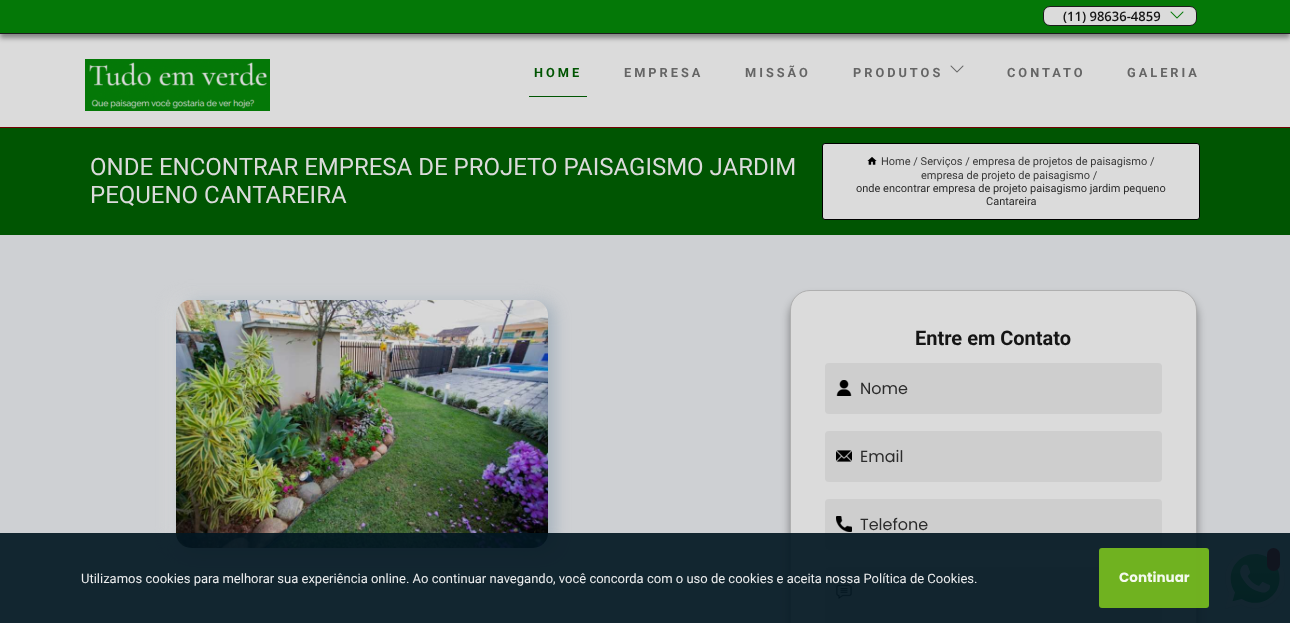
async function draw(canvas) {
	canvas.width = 1290;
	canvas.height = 623;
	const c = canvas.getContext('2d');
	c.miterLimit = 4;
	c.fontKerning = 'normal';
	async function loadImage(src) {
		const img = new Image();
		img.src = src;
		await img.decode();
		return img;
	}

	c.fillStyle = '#ced0d3';
	c.fillRect(0, 0, 1290, 623);
	c.fillStyle = '#dbdbdb';
	c.fillRect(0, 34, 1290, 93);
	c.fillStyle = '#00000066';
	c.filter = 'blur(2.5px)';
	c.beginPath();
	c.rect(0, 4, 1290, 34);
	c.fill();
	c.filter = 'none';
	c.fillStyle = '#047807';
	c.fillRect(0, 0, 1290, 33);
	c.fillStyle = '#1c1c1c';
	c.fillRect(0, 33, 1290, 1);
	c.fillStyle = '#dbdbdb';
	c.beginPath();
	c.roundRect(1043.5, 6.5, 153, 19, 6.5);
	c.fill();
	c.strokeStyle = '#1c1c1c';
	c.stroke();
	c.font = '600 13px Open Sans';
	c.fillStyle = '#151515';
	c.fillText('(11) 98636-4859', 1063, 21);
	c.drawImage(await loadImage('img1.png'), 1170, 11, 14, 8);
	c.drawImage(await loadImage('img2.png'), 85, 59, 185, 52);
	c.letterSpacing = '3px';
	c.font = 'bold 12.75px Roboto';
	c.fillStyle = '#005502';
	c.fillText('HOME', 534, 77);
	c.fillRect(529, 96, 58, 1);
	c.fillStyle = '#656565';
	for (const [text, x, y] of [
		['EMPRESA', 624, 77],
		['MISSÃO', 745, 77],
		['PRODUTOS', 853, 77],
	]) {
		c.fillText(text, x, y);
	}
	c.drawImage(await loadImage('img3.png'), 950, 65, 14, 8);
	c.fillText('CONTATO', 1007, 77);
	c.fillText('GALERIA', 1127, 77);
	c.fillStyle = '#005502';
	c.fillRect(0, 128, 1290, 107);
	c.fillStyle = '#720202';
	c.fillRect(0, 127, 1290, 1);
	c.letterSpacing = '0px';
	c.font = '24px Roboto';
	c.fillStyle = '#dbdbdb';
	c.fillText('ONDE ENCONTRAR EMPRESA DE PROJETO PAISAGISMO JARDIM', 90, 175);
	c.fillText('PEQUENO CANTAREIRA', 90, 203);
	c.beginPath();
	c.roundRect(822.5, 143.5, 377, 76, 2.5);
	c.fill();
	c.strokeStyle = '#000';
	c.stroke();
	c.drawImage(await loadImage('img4.png'), 867, 157, 10, 8);
	c.font = '11px Roboto';
	c.fillStyle = '#3a3a3a';
	c.fillText('Home / Serviços / empresa de projetos de paisagismo /', 881, 165);
	c.fillText('empresa de projeto de paisagismo /', 921, 179);
	c.fillStyle = '#2c2c2c';
	c.fillText('onde encontrar empresa de projeto paisagismo jardim pequeno', 856, 192);
	c.fillText('Cantareira', 986, 205);
	c.fillStyle = '#dbdbdbcc';
	c.filter = 'blur(8px)';
	c.beginPath();
	c.roundRect(170, 298, 372, 248, 15);
	c.fill();
	c.filter = 'none';
	c.fillStyle = '#758ea47a';
	c.filter = 'blur(8px)';
	c.beginPath();
	c.roundRect(182, 302, 372, 248, 15);
	c.fill();
	c.filter = 'none';
	c.drawImage(await loadImage('img5.png'), 176, 300, 372, 248);
	c.fillStyle = '#00000066';
	c.filter = 'blur(4.5px)';
	c.beginPath();
	c.roundRect(790, 297, 407, 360, 20);
	c.fill();
	c.filter = 'none';
	c.fillStyle = '#dbdbdb';
	c.beginPath();
	c.roundRect(790.5, 290.5, 406, 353, 19.5);
	c.fill();
	c.strokeStyle = '#afafaf';
	c.stroke();
	c.font = 'bold 20px Roboto';
	c.fillStyle = '#151515';
	c.fillText('Entre em Contato', 915, 345);
	c.fillStyle = '#cecece';
	c.beginPath();
	c.roundRect(825, 363, 337, 51, 4);
	c.fill();
	c.drawImage(await loadImage('img6.png'), 836, 380, 16, 16);
	c.font = '16px Poppins';
	c.fillStyle = '#2c2c2c';
	c.fillText('Nome', 860, 394);
	c.fillStyle = '#cecece';
	c.beginPath();
	c.roundRect(825, 431, 337, 51, 4);
	c.fill();
	c.drawImage(await loadImage('img7.png'), 836, 450, 16, 12);
	c.fillStyle = '#2c2c2c';
	c.fillText('Email', 860, 462);
	c.fillStyle = '#cecece';
	c.beginPath();
	c.roundRect(825, 499, 337, 51, 4);
	c.fill();
	c.drawImage(await loadImage('img8.png'), 836, 516, 16, 16);
	c.fillStyle = '#2c2c2c';
	c.fillText('Telefone', 860, 530);
	c.fillStyle = '#cecece';
	c.beginPath();
	c.roundRect(825, 567, 337, 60, 4);
	c.fill();
	c.drawImage(await loadImage('img9.png'), 836, 584, 16, 15);
	c.drawImage(await loadImage('img10.png'), 1225, 549, 60, 60);
	c.fillStyle = '#be0404';
	c.beginPath();
	c.roundRect(1267, 548, 13, 23, 6.5);
	c.fill();
	c.fillStyle = '#021722eb';
	c.fillRect(0, 533, 1290, 90);
	c.font = '13px Roboto';
	c.fillStyle = '#edeeef';
	c.fillText('Utilizamos cookies para melhorar sua experiência online. Ao continuar navegando, você concorda com o uso de cookies e aceita nossa Política de Cookies.', 81, 583);
	c.fillStyle = '#78be20eb';
	c.beginPath();
	c.roundRect(1099, 548, 110, 60, 3);
	c.fill();
	c.font = 'bold 13.5px Poppins';
	c.fillStyle = '#f4f9ee';
	c.fillText('Continuar', 1119, 582);
}

draw(document.querySelector('canvas'));
